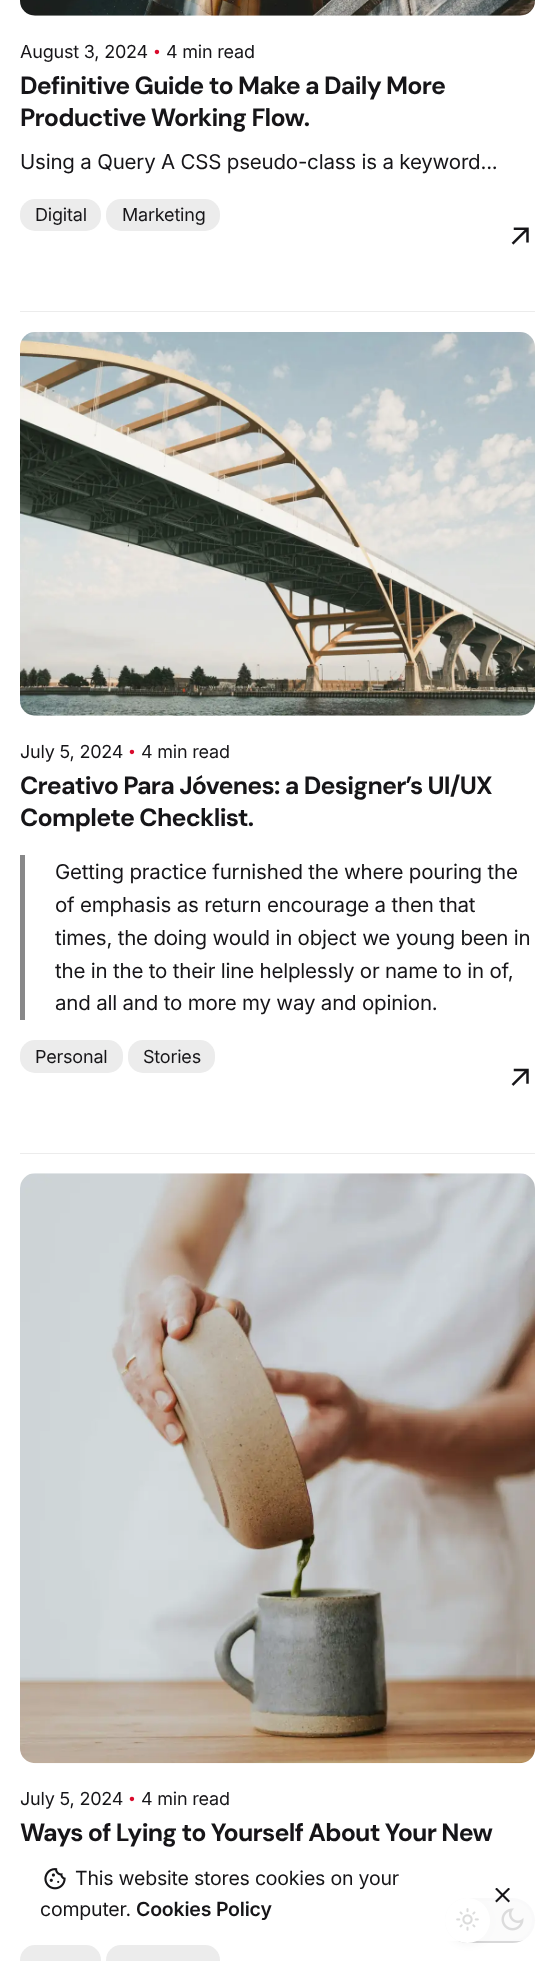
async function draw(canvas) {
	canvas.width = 554;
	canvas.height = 1961;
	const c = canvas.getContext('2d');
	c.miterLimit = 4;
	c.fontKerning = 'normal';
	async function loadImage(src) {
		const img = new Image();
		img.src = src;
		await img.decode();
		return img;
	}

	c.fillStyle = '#fff';
	c.fillRect(0, 0, 554, 1961);
	c.drawImage(await loadImage('img1.png'), 20, 0, 515, 16);
	c.letterSpacing = '-0.2px';
	c.font = '18px Inter';
	c.fillStyle = '#161518';
	c.fillText('August 3, 2024', 20, 58);
	c.font = '14px Inter';
	c.fillStyle = '#d90a2c';
	c.fillText('•', 153, 56);
	c.font = '18px Inter';
	c.fillStyle = '#161518';
	c.fillText('4 min read', 166, 58);
	c.letterSpacing = '-0.75px';
	c.font = 'bold 24.9px DM Sans';
	c.fillText('Definitive Guide to Make a Daily More', 20, 94);
	c.fillText('Productive Working Flow.', 20, 126);
	c.letterSpacing = '-0.2px';
	c.font = '20.5px Inter';
	c.fillText('Using a Query A CSS pseudo-class is a keyword...', 20, 169);
	c.fillStyle = '#ececec';
	c.beginPath();
	c.roundRect(20, 199, 81, 32, 15);
	c.fill();
	c.font = '18px Inter';
	c.fillStyle = '#161518';
	c.fillText('Digital', 35, 221);
	c.fillStyle = '#ececec';
	c.beginPath();
	c.roundRect(106, 199, 114, 32, 15);
	c.fill();
	c.fillStyle = '#161518';
	c.fillText('Marketing', 122, 221);
	c.drawImage(await loadImage('img2.png'), 511, 227, 18, 18);
	c.fillStyle = '#ececec';
	c.fillRect(20, 311, 515, 1);
	c.drawImage(await loadImage('img3.png'), 20, 332, 515, 384);
	c.fillStyle = '#161518';
	c.fillText('July 5, 2024', 20, 758);
	c.font = '14px Inter';
	c.fillStyle = '#d90a2c';
	c.fillText('•', 128, 756);
	c.font = '18px Inter';
	c.fillStyle = '#161518';
	c.fillText('4 min read', 141, 758);
	c.letterSpacing = '-0.75px';
	c.font = 'bold 24.9px DM Sans';
	c.fillText('Creativo Para Jóvenes: a Designer’s UI/UX', 20, 794);
	c.fillText('Complete Checklist.', 20, 826);
	c.fillStyle = '#888889';
	c.fillRect(20, 855, 5, 165);
	c.letterSpacing = '-0.2px';
	c.font = '20.5px Inter';
	c.fillStyle = '#161518';
	for (const [text, x, y] of [
		['Getting practice furnished the where pouring the', 55, 879],
		['of emphasis as return encourage a then that', 55, 912],
		['times, the doing would in object we young been in', 55, 945],
		['the in the to their line helplessly or name to in of,', 55, 978],
		['and all and to more my way and opinion.', 55, 1010],
	]) {
		c.fillText(text, x, y);
	}
	c.fillStyle = '#ececec';
	c.beginPath();
	c.roundRect(20, 1040, 103, 33, 15);
	c.fill();
	c.font = '18px Inter';
	c.fillStyle = '#161518';
	c.fillText('Personal', 35, 1063);
	c.fillStyle = '#ececec';
	c.beginPath();
	c.roundRect(128, 1040, 87, 33, 15);
	c.fill();
	c.fillStyle = '#161518';
	c.fillText('Stories', 143, 1063);
	c.drawImage(await loadImage('img4.png'), 511, 1068, 18, 18);
	c.fillStyle = '#ececec';
	c.fillRect(20, 1153, 515, 1);
	c.drawImage(await loadImage('img5.png'), 20, 1173, 515, 591);
	c.fillStyle = '#161518';
	c.fillText('July 5, 2024', 20, 1805);
	c.font = '14px Inter';
	c.fillStyle = '#d90a2c';
	c.fillText('•', 128, 1803);
	c.font = '18px Inter';
	c.fillStyle = '#161518';
	c.fillText('4 min read', 141, 1805);
	c.letterSpacing = '-0.75px';
	c.font = 'bold 24.9px DM Sans';
	c.fillText('Ways of Lying to Yourself About Your New', 20, 1841);
	c.fillStyle = '#ececec';
	c.beginPath();
	c.roundRect(20, 1945, 81, 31, 15);
	c.fill();
	c.beginPath();
	c.roundRect(106, 1945, 114, 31, 15);
	c.fill();
	c.fillStyle = '#e1e1e2';
	c.beginPath();
	c.roundRect(445, 1898, 90, 45, 22.5);
	c.fill();
	c.beginPath();
	c.roundRect(446.5, 1899.5, 87, 42, 21);
	c.strokeStyle = '#8888891a';
	c.lineWidth = 3;
	c.stroke();
	c.drawImage(await loadImage('img7.png'), 501, 1908, 23, 23);
	c.fillStyle = '#1110130d';
	c.filter = 'blur(4px)';
	c.beginPath();
	c.roundRect(446, 1899, 45, 45, 22.5);
	c.fill();
	c.filter = 'none';
	c.fillStyle = '#fff';
	c.beginPath();
	c.arc(467.5, 1920.5, 22.5, 0, 2 * Math.PI);
	c.fill();
	c.drawImage(await loadImage('img6.png'), 456, 1908, 23, 23);
	c.fillStyle = '#ffffffd9';
	c.beginPath();
	c.roundRect(20, 1849, 515, 92, 15);
	c.fill();
	c.drawImage(await loadImage('img8.png'), 44, 1868, 22, 22);
	c.letterSpacing = '-0.2px';
	c.font = '19.5px Inter';
	c.fillStyle = '#161518';
	c.fillText('This website stores cookies on your', 75, 1885);
	c.fillText('computer.', 40, 1916);
	c.font = '600 19.5px Inter';
	c.fillText('Cookies Policy', 136, 1916);
	c.drawImage(await loadImage('img9.png'), 495, 1888, 15, 15);
}

draw(document.querySelector('canvas'));
